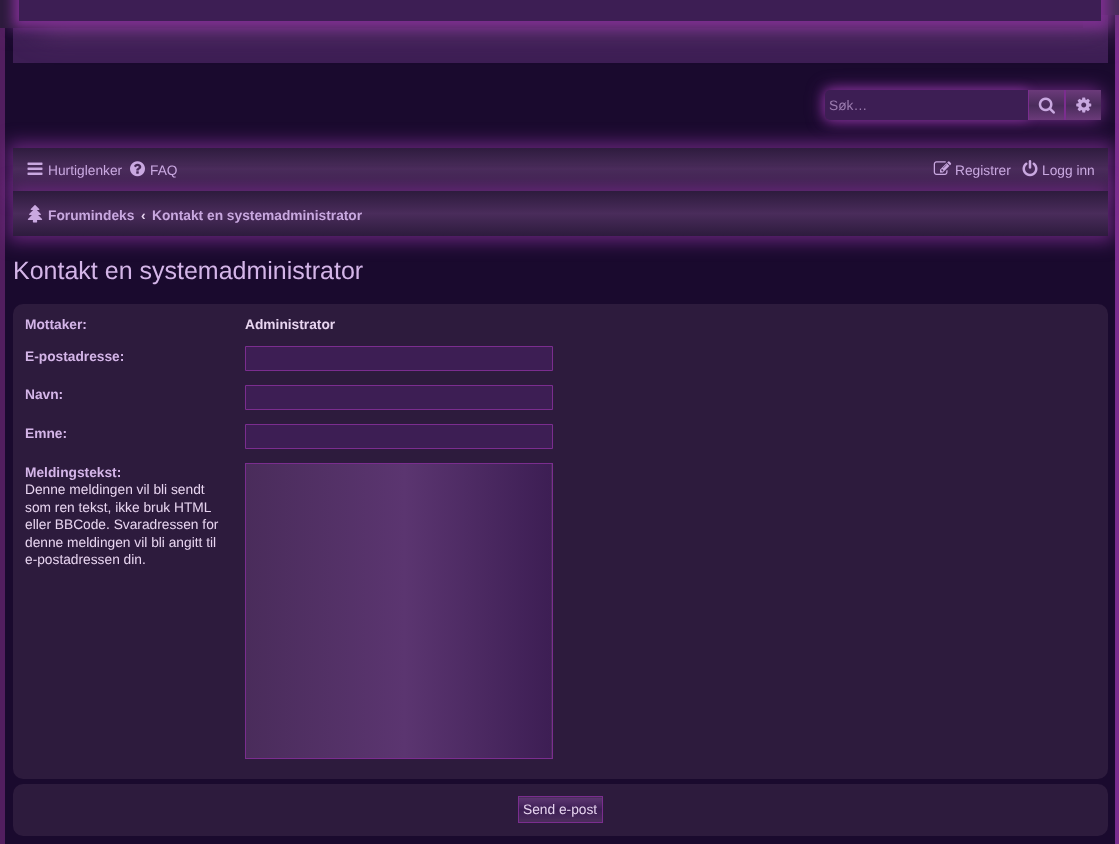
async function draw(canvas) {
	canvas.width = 1119;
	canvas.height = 844;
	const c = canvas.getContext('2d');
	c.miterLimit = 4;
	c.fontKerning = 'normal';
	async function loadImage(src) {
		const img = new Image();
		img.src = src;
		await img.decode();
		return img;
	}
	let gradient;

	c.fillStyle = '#1a0a2e';
	c.fillRect(0, 0, 1119, 844);
	c.beginPath();
	c.moveTo(1115.5, -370.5);
	c.bezierCurveTo(1116.5, -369, 1117.5, -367, 1117.5, -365);
	c.lineTo(1117.5, 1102.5);
	c.bezierCurveTo(1117.5, 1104.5, 1116.5, 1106.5, 1115.5, 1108);
	c.bezierCurveTo(1114, 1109, 1112, 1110, 1110, 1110);
	c.lineTo(10, 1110);
	c.bezierCurveTo(8, 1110, 6, 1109, 4.5, 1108);
	c.strokeStyle = '#7b2d8f';
	c.lineWidth = 5;
	c.stroke();
	c.beginPath();
	c.moveTo(4.5, 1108);
	c.bezierCurveTo(3.5, 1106.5, 2.5, 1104.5, 2.5, 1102.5);
	c.lineTo(2.5, -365);
	c.bezierCurveTo(2.5, -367, 3.5, -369, 4.5, -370.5);
	c.bezierCurveTo(6, -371.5, 8, -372.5, 10, -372.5);
	c.lineTo(1110, -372.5);
	c.bezierCurveTo(1112, -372.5, 1114, -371.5, 1115.5, -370.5);
	c.strokeStyle = '#521e5f';
	c.stroke();
	c.fillStyle = '#3d1e54';
	c.fillRect(13, 0, 1095, 63);
	c.save();
	c.beginPath();
	c.moveTo(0, 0);
	c.lineTo(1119, 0);
	c.lineTo(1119, 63);
	c.lineTo(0, 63);
	c.closePath();
	c.moveTo(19, -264);
	c.lineTo(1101, -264);
	c.lineTo(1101, 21);
	c.lineTo(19, 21);
	c.closePath();
	c.clip('evenodd');
	c.fillStyle = '#5b3570';
	c.filter = 'blur(15.5px)';
	c.beginPath();
	c.rect(0, -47, 1083, 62);
	c.fill();
	c.filter = 'none';
	c.restore();
	c.fillStyle = '#2d1b3d';
	c.beginPath();
	c.moveTo(0, -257);
	c.lineTo(0, 28);
	c.lineTo(1083, 28);
	c.lineTo(1083, 21);
	c.lineTo(19, 21);
	c.lineTo(19, -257);
	c.closePath();
	c.fill();
	c.save();
	c.beginPath();
	c.moveTo(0, 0);
	c.lineTo(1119, 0);
	c.lineTo(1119, 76);
	c.lineTo(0, 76);
	c.closePath();
	c.moveTo(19, -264);
	c.lineTo(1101, -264);
	c.lineTo(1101, 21);
	c.lineTo(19, 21);
	c.closePath();
	c.clip('evenodd');
	c.fillStyle = '#6b3a7a';
	c.filter = 'blur(15.5px)';
	c.beginPath();
	c.rect(38, -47, 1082, 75);
	c.fill();
	c.filter = 'none';
	c.restore();
	c.fillStyle = '#4a2c5b';
	c.beginPath();
	c.moveTo(38, -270);
	c.lineTo(38, -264);
	c.lineTo(1101, -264);
	c.lineTo(1101, 15);
	c.lineTo(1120, 15);
	c.lineTo(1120, -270);
	c.closePath();
	c.fill();
	c.save();
	c.beginPath();
	c.moveTo(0, 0);
	c.lineTo(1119, 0);
	c.lineTo(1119, 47);
	c.lineTo(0, 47);
	c.closePath();
	c.moveTo(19, -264);
	c.lineTo(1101, -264);
	c.lineTo(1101, 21);
	c.lineTo(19, 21);
	c.closePath();
	c.clip('evenodd');
	c.fillStyle = '#7b2d8f';
	c.filter = 'blur(6px)';
	c.beginPath();
	c.rect(13, -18, 1095, 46);
	c.fill();
	c.filter = 'none';
	c.restore();
	c.fillStyle = '#7b2d8f';
	c.filter = 'blur(9px)';
	c.beginPath();
	c.roundRect(825, 90, 276, 30, 5);
	c.fill();
	c.filter = 'none';
	c.filter = 'blur(6px)';
	c.beginPath();
	c.roundRect(825, 90, 203, 30, 5);
	c.fill();
	c.filter = 'none';
	c.fillStyle = '#7b2d8fcc';
	c.filter = 'blur(9px)';
	c.beginPath();
	c.rect(8, 143, 1105, 53);
	c.fill();
	c.filter = 'none';
	c.fillStyle = '#3d1e54';
	c.beginPath();
	c.roundRect(825, 90, 203, 30, [5, 0, 0, 5]);
	c.fill();
	c.font = '13.75px Liberation Sans';
	c.fillStyle = '#9b7baf';
	c.fillText('Søk…', 829, 110);
	gradient = c.createLinearGradient(1046, 90, 1046, 120);
	gradient.addColorStop(0, '#6b3a7a');
	gradient.addColorStop(0.52, '#4a2c5b');
	gradient.addColorStop(1, '#6b3a7a');
	c.fillStyle = gradient;
	c.fillRect(1029, 90, 35, 30);
	c.fillStyle = '#7b2d8f';
	c.fillRect(1064, 90, 2, 30);
	c.fillRect(1028, 90, 1, 30);
	c.drawImage(await loadImage('img1.png'), 1038, 97, 17, 17);
	gradient = c.createLinearGradient(1084, 90, 1084, 120);
	gradient.addColorStop(0, '#6b3a7a');
	gradient.addColorStop(0.52, '#4a2c5b');
	gradient.addColorStop(1, '#6b3a7a');
	c.fillStyle = gradient;
	c.fillRect(1066, 90, 35, 30);
	c.drawImage(await loadImage('img2.png'), 1076, 97, 16, 16);
	gradient = c.createLinearGradient(560, 147, 560, 191);
	gradient.addColorStop(0, '#2d1b3d');
	gradient.addColorStop(0.5, '#4a2c5b');
	gradient.addColorStop(1, '#2d1b3d');
	c.fillStyle = gradient;
	c.fillRect(13, 148, 1095, 43);
	c.fillStyle = '#7b2d8fcc';
	c.filter = 'blur(9px)';
	c.beginPath();
	c.rect(8, 186, 1105, 55);
	c.fill();
	c.filter = 'none';
	c.drawImage(await loadImage('img3.png'), 27, 162, 16, 13);
	c.fillStyle = '#c9a8e0';
	c.fillText('Hurtiglenker', 48, 175);
	c.drawImage(await loadImage('img4.png'), 130, 161, 15, 16);
	c.fillText('FAQ', 150, 175);
	c.drawImage(await loadImage('img5.png'), 933, 161, 19, 14);
	c.fillText('Registrer', 955, 175);
	c.drawImage(await loadImage('img6.png'), 1022, 160, 16, 17);
	c.fillText('Logg inn', 1042, 175);
	gradient = c.createLinearGradient(560, 191, 560, 236);
	gradient.addColorStop(0, '#2d1b3d');
	gradient.addColorStop(0.5, '#4a2c5b');
	gradient.addColorStop(1, '#2d1b3d');
	c.fillStyle = gradient;
	c.fillRect(13, 191, 1095, 45);
	c.drawImage(await loadImage('img7.png'), 27, 205, 16, 18);
	c.font = 'bold 13.75px Liberation Sans';
	c.fillStyle = '#c9a8e0';
	c.fillText('Forumindeks', 48, 220);
	c.fillStyle = '#e8d5f0';
	c.fillText('‹', 141, 220);
	c.fillStyle = '#c9a8e0';
	c.fillText('Kontakt en systemadministrator', 152, 220);
	c.font = '25px Liberation Sans';
	c.fillStyle = '#d4b5e8';
	c.fillText('Kontakt en systemadministrator', 13, 279);
	c.fillStyle = '#2d1b3d';
	c.beginPath();
	c.roundRect(13, 304, 1095, 475, 10);
	c.fill();
	c.font = 'bold 13.75px Liberation Sans';
	c.fillStyle = '#d4b5e8';
	c.fillText('Mottaker:', 25, 329);
	c.fillStyle = '#e8d5f0';
	c.fillText('Administrator', 245, 329);
	c.fillStyle = '#d4b5e8';
	c.fillText('E-postadresse:', 25, 361);
	c.fillStyle = '#3d1e54';
	c.beginPath();
	c.rect(245.5, 346.5, 307, 24);
	c.fill();
	c.strokeStyle = '#7b2d8f';
	c.lineWidth = 1;
	c.stroke();
	c.fillStyle = '#d4b5e8';
	c.fillText('Navn:', 25, 399);
	c.fillStyle = '#3d1e54';
	c.beginPath();
	c.rect(245.5, 385.5, 307, 24);
	c.fill();
	c.stroke();
	c.fillStyle = '#d4b5e8';
	c.fillText('Emne:', 25, 438);
	c.fillStyle = '#3d1e54';
	c.beginPath();
	c.rect(245.5, 424.5, 307, 24);
	c.fill();
	c.stroke();
	c.fillStyle = '#d4b5e8';
	c.fillText('Meldingstekst:', 25, 477);
	c.font = '13.75px Liberation Sans';
	c.fillStyle = '#e8d5f0';
	for (const [text, x, y] of [
		['Denne meldingen vil bli sendt', 25, 494],
		['som ren tekst, ikke bruk HTML', 25, 512],
		['eller BBCode. Svaradressen for', 25, 529],
		['denne meldingen vil bli angitt til', 25, 547],
		['e-postadressen din.', 25, 564],
	]) {
		c.fillText(text, x, y);
	}
	gradient = c.createLinearGradient(246, 611, 551, 611);
	gradient.addColorStop(0, '#4a2c5b');
	gradient.addColorStop(0.52, '#5b3570');
	gradient.addColorStop(1, '#3d1e54');
	c.fillStyle = gradient;
	c.fillRect(246, 464, 305, 294);
	gradient = c.createLinearGradient(551, 611, 856, 611);
	gradient.addColorStop(0, '#4a2c5b');
	gradient.addColorStop(0.52, '#5b3570');
	gradient.addColorStop(1, '#3d1e54');
	c.fillStyle = gradient;
	c.fillRect(551, 463, 1, 296);
	c.strokeRect(245.5, 463.5, 307, 295);
	c.fillStyle = '#2d1b3d';
	c.beginPath();
	c.roundRect(13, 784, 1095, 52, 10);
	c.fill();
	c.fillStyle = '#4a2c5b';
	c.fillRect(519, 797, 83, 25);
	gradient = c.createLinearGradient(560, 798, 560, 821);
	gradient.addColorStop(0, '#5b3570');
	gradient.addColorStop(0.5, '#3d1e54');
	gradient.addColorStop(1, '#4a2c5b');
	c.fillStyle = gradient;
	c.fillRect(519, 798, 83, 21);
	c.strokeRect(518.5, 796.5, 84, 26);
	c.fillStyle = '#e8d5f0';
	c.fillText('Send e-post', 523, 814);
}

draw(document.querySelector('canvas'));
